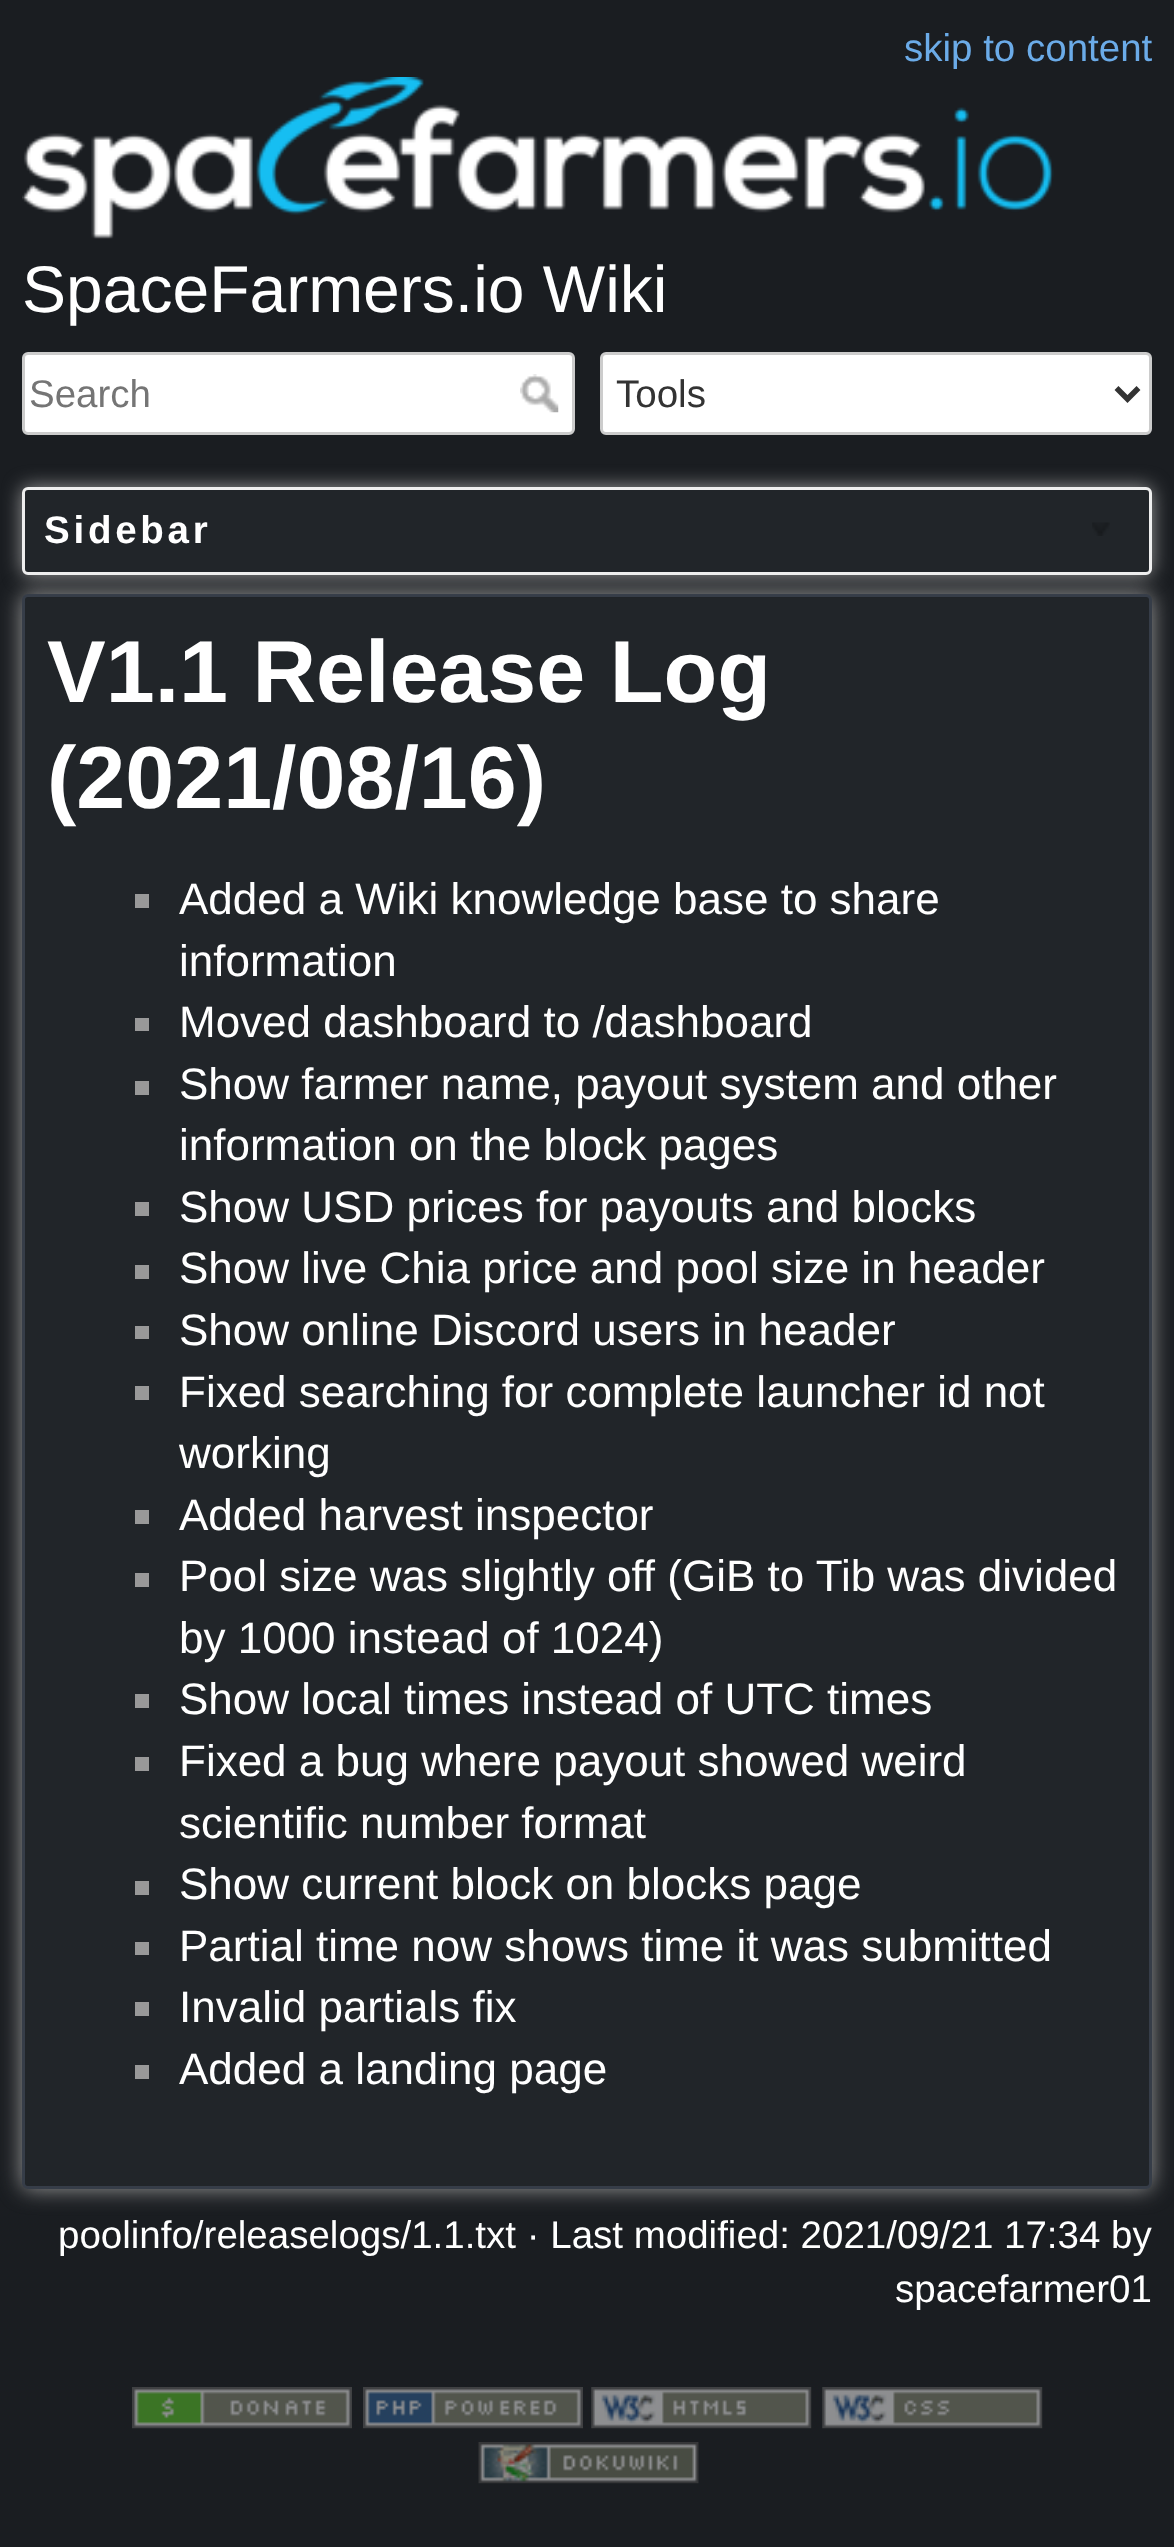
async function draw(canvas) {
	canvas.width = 1174;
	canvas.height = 2547;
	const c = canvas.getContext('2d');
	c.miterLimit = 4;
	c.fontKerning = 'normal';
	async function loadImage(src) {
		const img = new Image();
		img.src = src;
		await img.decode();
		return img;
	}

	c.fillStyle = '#1a1d21';
	c.fillRect(0, 0, 1174, 2547);
	c.font = '38.5px Liberation Sans';
	c.fillStyle = '#6babe8';
	c.fillText('skip to content', 904, 61);
	c.drawImage(await loadImage('img1.png'), 22, 77, 1032, 162);
	c.font = '66px Liberation Sans';
	c.fillStyle = '#fff';
	c.fillText('SpaceFarmers.io Wiki', 22, 312);
	c.beginPath();
	c.roundRect(23.5, 353.5, 550, 80, 4.5);
	c.fill();
	c.strokeStyle = '#ccc';
	c.lineWidth = 3;
	c.stroke();
	c.font = '38.5px Liberation Sans';
	c.fillStyle = '#757575';
	c.fillText('Search', 29, 407);
	c.drawImage(await loadImage('img2.png'), 520, 374, 39, 39);
	c.fillStyle = '#fff';
	c.beginPath();
	c.roundRect(601.5, 353.5, 549, 80, 4.5);
	c.fill();
	c.stroke();
	c.beginPath();
	c.moveTo(1116.5, 388);
	c.lineTo(1127.5, 399);
	c.lineTo(1138.5, 388);
	c.strokeStyle = '#333';
	c.lineWidth = 5.5;
	c.stroke();
	c.fillStyle = '#333';
	c.fillText('Tools', 616, 407);
	c.fillStyle = '#999';
	c.filter = 'blur(11px)';
	c.beginPath();
	c.roundRect(22, 594, 1130, 1595, 6);
	c.fill();
	c.filter = 'none';
	c.fillStyle = '#212529';
	c.beginPath();
	c.roundRect(23.5, 595.5, 1127, 1592, 4.5);
	c.fill();
	c.strokeStyle = '#363d48';
	c.lineWidth = 3;
	c.stroke();
	c.fillStyle = '#999';
	c.filter = 'blur(9.5px)';
	c.beginPath();
	c.roundRect(22, 487, 1130, 88, 6);
	c.fill();
	c.filter = 'none';
	c.fillStyle = '#212529';
	c.beginPath();
	c.roundRect(23.5, 488.5, 1127, 85, 4.5);
	c.fill();
	c.strokeStyle = '#eee';
	c.stroke();
	c.letterSpacing = '3.75px';
	c.font = 'bold 38.5px Liberation Sans';
	c.fillStyle = '#fff';
	c.fillText('Sidebar', 44, 543);
	c.drawImage(await loadImage('img3.png'), 1092, 522, 18, 14);
	c.letterSpacing = '0px';
	c.font = 'bold 88px Liberation Sans';
	c.fillText('V1.1 Release Log', 47, 702);
	c.fillText('(2021/08/16)', 47, 808);
	c.fillStyle = '#999';
	c.fillRect(135, 894, 14, 14);
	c.font = '44px Liberation Sans';
	c.fillStyle = '#fff';
	c.fillText('Added a Wiki knowledge base to share', 179, 914);
	c.fillText('information', 179, 976);
	c.fillStyle = '#999';
	c.fillRect(135, 1018, 14, 13);
	c.fillStyle = '#fff';
	c.fillText('Moved dashboard to /dashboard', 179, 1037);
	c.fillStyle = '#999';
	c.fillRect(135, 1081, 14, 14);
	c.fillStyle = '#fff';
	c.fillText('Show farmer name, payout system and other', 179, 1099);
	c.fillText('information on the block pages', 179, 1160);
	c.fillStyle = '#999';
	c.fillRect(135, 1202, 14, 14);
	c.fillStyle = '#fff';
	c.fillText('Show USD prices for payouts and blocks', 179, 1222);
	c.fillStyle = '#999';
	c.fillRect(135, 1265, 14, 14);
	c.fillStyle = '#fff';
	c.fillText('Show live Chia price and pool size in header', 179, 1283);
	c.fillStyle = '#999';
	c.fillRect(135, 1326, 14, 13);
	c.fillStyle = '#fff';
	c.fillText('Show online Discord users in header', 179, 1345);
	c.fillStyle = '#999';
	c.fillRect(135, 1386, 14, 14);
	c.fillStyle = '#fff';
	c.fillText('Fixed searching for complete launcher id not', 179, 1407);
	c.fillText('working', 179, 1468);
	c.fillStyle = '#999';
	c.fillRect(135, 1510, 14, 14);
	c.fillStyle = '#fff';
	c.fillText('Added harvest inspector', 179, 1530);
	c.fillStyle = '#999';
	c.fillRect(135, 1573, 14, 14);
	c.fillStyle = '#fff';
	c.fillText('Pool size was slightly off (GiB to Tib was divided', 179, 1591);
	c.fillText('by 1000 instead of 1024)', 179, 1653);
	c.fillStyle = '#999';
	c.fillRect(135, 1694, 14, 14);
	c.fillStyle = '#fff';
	c.fillText('Show local times instead of UTC times', 179, 1714);
	c.fillStyle = '#999';
	c.fillRect(135, 1757, 14, 14);
	c.fillStyle = '#fff';
	c.fillText('Fixed a bug where payout showed weird', 179, 1776);
	c.fillText('scientific number format', 179, 1838);
	c.fillStyle = '#999';
	c.fillRect(135, 1881, 14, 14);
	c.fillStyle = '#fff';
	c.fillText('Show current block on blocks page', 179, 1899);
	c.fillStyle = '#999';
	c.fillRect(135, 1942, 14, 13);
	c.fillStyle = '#fff';
	c.fillText('Partial time now shows time it was submitted', 179, 1961);
	c.fillStyle = '#999';
	c.fillRect(135, 2002, 14, 14);
	c.fillStyle = '#fff';
	c.fillText('Invalid partials fix', 179, 2022);
	c.fillStyle = '#999';
	c.fillRect(135, 2065, 14, 14);
	c.fillStyle = '#fff';
	c.fillText('Added a landing page', 179, 2084);
	c.font = '38.5px Liberation Sans';
	c.fillText('poolinfo/releaselogs/1.1.txt · Last modified: 2021/09/21 17:34 by', 58, 2248);
	c.fillText('spacefarmer01', 895, 2302);
	c.drawImage(await loadImage('img4.png'), 132, 2387, 220, 42);
	c.drawImage(await loadImage('img5.png'), 363, 2387, 220, 42);
	c.drawImage(await loadImage('img6.png'), 591, 2387, 221, 42);
	c.drawImage(await loadImage('img7.png'), 822, 2387, 221, 42);
	c.drawImage(await loadImage('img8.png'), 478, 2442, 221, 42);
}

draw(document.querySelector('canvas'));
